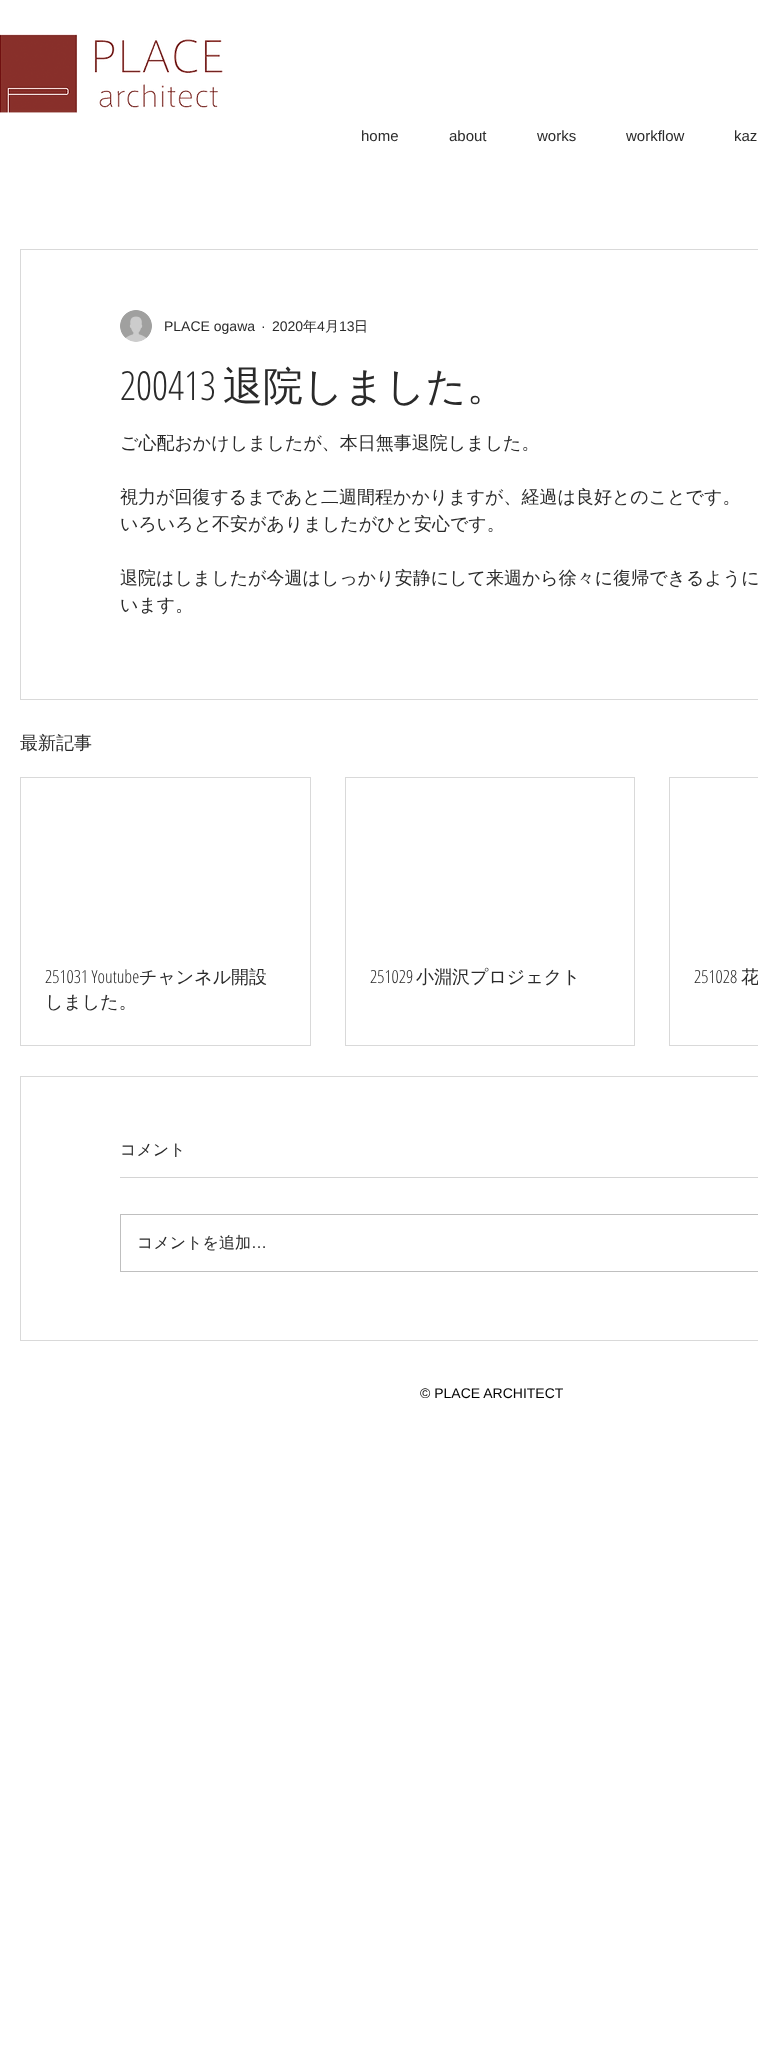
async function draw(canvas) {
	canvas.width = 758;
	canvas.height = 2055;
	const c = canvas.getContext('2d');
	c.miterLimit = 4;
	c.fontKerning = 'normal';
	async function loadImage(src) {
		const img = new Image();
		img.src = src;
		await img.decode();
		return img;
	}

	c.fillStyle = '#fff';
	c.fillRect(0, 0, 758, 2055);
	c.drawImage(await loadImage('img1.png'), 0, 34, 223, 79);
	c.font = '15px Liberation Sans';
	c.fillStyle = '#2a2a2a';
	for (const [text, x, y] of [
		['home', 361, 141],
		['about', 449, 141],
		['works', 537, 141],
		['workflow', 626, 141],
		['kaz', 734, 141],
	]) {
		c.fillText(text, x, y);
	}
	c.strokeStyle = '#d9d9d9';
	c.strokeRect(20.5, 249.5, 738, 450);
	c.drawImage(await loadImage('img2.png'), 120, 310, 32, 32);
	c.font = '14px Liberation Sans';
	for (const [text, x, y] of [
		['PLACE ogawa', 164, 331],
		['·', 261, 331],
		['2020', 272, 331],
	]) {
		c.fillText(text, x, y);
	}
	c.font = '500 14px WenQuanYi Zen Hei';
	c.fillText('年', 303, 331);
	c.font = '14px Liberation Sans';
	c.fillText('4', 317, 331);
	c.font = '500 14px WenQuanYi Zen Hei';
	c.fillText('月', 325, 331);
	c.font = '14px Liberation Sans';
	c.fillText('13', 339, 331);
	c.font = '500 14px WenQuanYi Zen Hei';
	c.fillText('日', 354, 331);
	c.font = '300 40px Open Sans Condensed';
	c.fillText('200413', 120, 400);
	c.font = '500 40px WenQuanYi Zen Hei';
	c.fillText('退院しました。', 223, 400);
	c.font = '500 18px WenQuanYi Zen Hei';
	for (const [text, x, y] of [
		['ご心配おかけしましたが、本日無事退院しました。', 120, 449],
		['視力が回復するまであと二週間程かかりますが、経過は良好とのことです。', 120, 503],
		['いろいろと不安がありましたがひと安心です。', 120, 530],
		['退院はしましたが今週はしっかり安静にして来週から徐々に復帰できるように', 120, 584],
		['います。', 120, 611],
		['最新記事', 20, 749],
	]) {
		c.fillText(text, x, y);
	}
	c.strokeRect(20.5, 777.5, 290, 268);
	c.font = '300 18px Open Sans Condensed';
	c.fillText('251031 Youtube', 45, 983);
	c.font = '500 18px WenQuanYi Zen Hei';
	c.fillText('チャンネル開設', 139, 983);
	c.fillText('しました。', 45, 1008);
	c.strokeRect(345.5, 777.5, 289, 268);
	c.font = '300 18px Open Sans Condensed';
	c.fillText('251029', 370, 983);
	c.font = '500 18px WenQuanYi Zen Hei';
	c.fillText('小淵沢プロジェクト', 416, 983);
	c.strokeRect(669.5, 777.5, 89, 268);
	c.font = '300 18px Open Sans Condensed';
	c.fillText('251028', 694, 983);
	c.font = '500 18px WenQuanYi Zen Hei';
	c.fillText('花', 741, 983);
	c.strokeRect(20.5, 1076.5, 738, 264);
	c.font = '500 16px WenQuanYi Zen Hei';
	c.fillText('コメント', 120, 1155);
	c.fillStyle = '#d4d4d4';
	c.fillRect(120, 1177, 638, 1);
	c.strokeStyle = '#bfbfbf';
	c.strokeRect(120.5, 1214.5, 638, 57);
	c.fillStyle = '#2a2a2a';
	c.fillText('コメントを追加', 137, 1248);
	c.font = '16px Liberation Sans';
	c.fillText('…', 251, 1248);
	c.font = '14px Liberation Sans';
	c.fillStyle = '#000';
	c.fillText('© PLACE ARCHITECT', 420, 1398);
}

draw(document.querySelector('canvas'));
